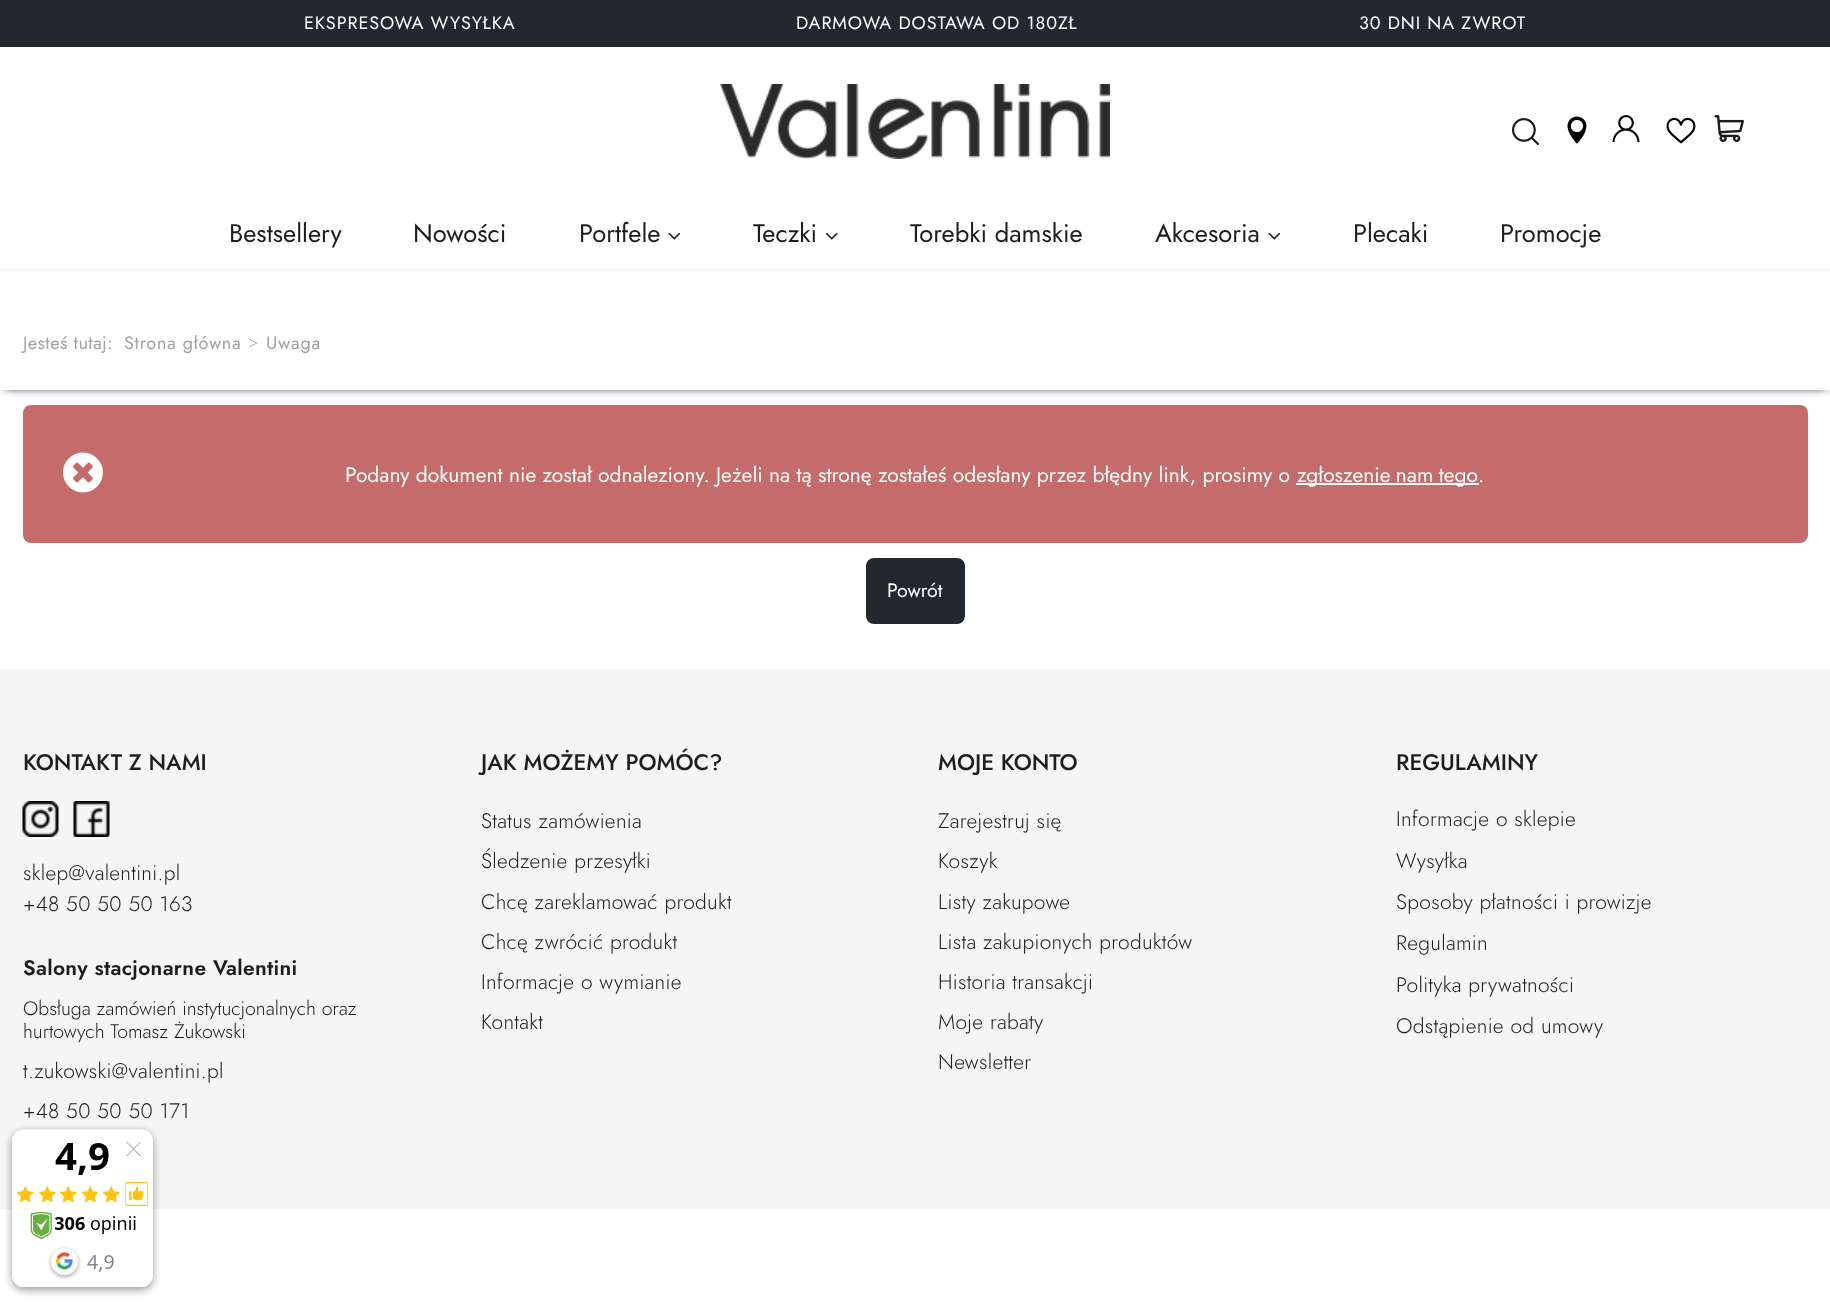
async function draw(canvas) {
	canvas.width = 1830;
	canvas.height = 1304;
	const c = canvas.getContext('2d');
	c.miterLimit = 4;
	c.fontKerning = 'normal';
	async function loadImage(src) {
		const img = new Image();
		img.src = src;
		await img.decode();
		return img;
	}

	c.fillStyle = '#fff';
	c.fillRect(0, 0, 1830, 1304);
	c.save();
	c.beginPath();
	c.rect(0, 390, 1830, 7);
	c.clip();
	c.fillStyle = '#42445a';
	c.filter = 'blur(4px)';
	c.beginPath();
	c.rect(5, 8, 1821, 381);
	c.fill();
	c.filter = 'none';
	c.restore();
	c.fillStyle = '#23282e';
	c.fillRect(0, 0, 1830, 47);
	c.letterSpacing = '0.9px';
	c.font = '18px Jost';
	c.fillStyle = '#fff';
	for (const [text, x, y] of [
		['EKSPRESOWA WYSYŁKA', 304, 29],
		['DARMOWA DOSTAWA OD 180ZŁ', 796, 29],
		['30 DNI NA ZWROT', 1359, 29],
	]) {
		c.fillText(text, x, y);
	}
	c.drawImage(await loadImage('img1.png'), 720, 84, 390, 75);
	c.drawImage(await loadImage('img2.png'), 1512, 118, 27, 27);
	c.drawImage(await loadImage('img3.png'), 1567, 116, 20, 28);
	c.drawImage(await loadImage('img4.png'), 1612, 115, 28, 28);
	c.drawImage(await loadImage('img5.png'), 1666, 117, 30, 27);
	c.drawImage(await loadImage('img6.png'), 1714, 115, 30, 27);
	c.letterSpacing = '0px';
	c.font = '25.5px Jost';
	c.fillStyle = '#1d1d1d';
	for (const [text, x, y] of [
		['Bestsellery', 229, 242],
		['Nowości', 413, 242],
		['Portfele', 579, 242],
	]) {
		c.fillText(text, x, y);
	}
	c.drawImage(await loadImage('img7.png'), 668, 232, 12, 8);
	c.fillText('Teczki', 753, 242);
	c.drawImage(await loadImage('img8.png'), 826, 232, 12, 8);
	c.fillText('Torebki damskie', 910, 242);
	c.fillText('Akcesoria', 1155, 242);
	c.drawImage(await loadImage('img7.png'), 1268, 232, 12, 8);
	c.fillText('Plecaki', 1353, 242);
	c.fillText('Promocje', 1500, 242);
	c.fillStyle = '#f5f5f5';
	c.fillRect(0, 269, 1830, 2);
	c.letterSpacing = '0.5px';
	c.font = '18px Jost';
	c.fillStyle = '#a2a2a2';
	c.fillText('Jesteś tutaj:', 23, 349);
	c.letterSpacing = '0.75px';
	c.fillText('Strona główna', 124, 349);
	c.font = '18px Liberation Serif';
	c.fillText('>', 248, 349);
	c.font = '18px Jost';
	c.fillText('Uwaga', 266, 349);
	c.fillStyle = '#c66b6b';
	c.beginPath();
	c.roundRect(23, 405, 1785, 138, 8);
	c.fill();
	c.drawImage(await loadImage('img9.png'), 63, 452, 40, 41);
	c.letterSpacing = '0px';
	c.font = '21px Jost';
	c.fillStyle = '#fff';
	c.fillText('Podany dokument nie został odnaleziony. Jeżeli na tą stronę zostałeś odesłany przez błędny link, prosimy o', 345, 482);
	c.fillRect(1296, 483, 183, 2);
	c.wordSpacing = '-1px';
	c.fillText('zgłoszenie nam tego', 1297, 482);
	c.wordSpacing = '0px';
	c.fillText('.', 1478, 482);
	c.fillStyle = '#23282e';
	c.beginPath();
	c.roundRect(867, 559, 97, 64, 7);
	c.fill();
	c.strokeStyle = '#23282e';
	c.lineWidth = 2;
	c.stroke();
	c.font = '19.5px Jost';
	c.fillStyle = '#fff';
	c.fillText('Powrót', 887, 597);
	c.fillStyle = '#f5f5f5';
	c.fillRect(0, 669, 1830, 540);
	c.font = '500 22.5px Jost';
	c.fillStyle = '#1d1d1d';
	c.fillText('KONTAKT Z NAMI', 23, 770);
	c.drawImage(await loadImage('img10.png'), 22, 801, 37, 36);
	c.drawImage(await loadImage('img11.png'), 73, 801, 37, 36);
	c.letterSpacing = '0.3px';
	c.font = '300 21px Jost';
	c.fillText('sklep@valentini.pl', 23, 880);
	c.fillText('+48 50 50 50 163', 23, 911);
	c.font = '600 21px Jost';
	c.fillText('Salony stacjonarne Valentini', 23, 975);
	c.letterSpacing = '0px';
	c.font = '300 19.5px Jost';
	c.fillText('Obsługa zamówień instytucjonalnych oraz', 23, 1015);
	c.fillText('hurtowych Tomasz Żukowski', 23, 1038);
	c.letterSpacing = '0.3px';
	c.font = '300 21px Jost';
	c.fillText('t.zukowski@valentini.pl', 23, 1078);
	c.fillText('+48 50 50 50 171', 23, 1118);
	c.letterSpacing = '0px';
	c.font = '500 22.5px Jost';
	c.fillText('JAK MOŻEMY POMÓC?', 481, 770);
	c.letterSpacing = '0.3px';
	c.font = '300 21px Jost';
	for (const [text, x, y] of [
		['Status zamówienia', 481, 828],
		['Śledzenie przesyłki', 481, 868],
		['Chcę zareklamować produkt', 481, 909],
		['Chcę zwrócić produkt', 481, 949],
		['Informacje o wymianie', 481, 989],
		['Kontakt', 481, 1029],
	]) {
		c.fillText(text, x, y);
	}
	c.letterSpacing = '0px';
	c.font = '500 22.5px Jost';
	c.fillText('MOJE KONTO', 938, 770);
	c.letterSpacing = '0.3px';
	c.font = '300 21px Jost';
	for (const [text, x, y] of [
		['Zarejestruj się', 938, 828],
		['Koszyk', 938, 868],
		['Listy zakupowe', 938, 909],
		['Lista zakupionych produktów', 938, 949],
		['Historia transakcji', 938, 989],
		['Moje rabaty', 938, 1029],
		['Newsletter', 938, 1069],
	]) {
		c.fillText(text, x, y);
	}
	c.letterSpacing = '0px';
	c.font = '500 22.5px Jost';
	c.fillText('REGULAMINY', 1396, 770);
	c.letterSpacing = '0.3px';
	c.font = '300 21px Jost';
	for (const [text, x, y] of [
		['Informacje o sklepie', 1396, 826],
		['Wysyłka', 1396, 868],
		['Sposoby płatności i prowizje', 1396, 909],
		['Regulamin', 1396, 950],
		['Polityka prywatności', 1396, 992],
		['Odstąpienie od umowy', 1396, 1033],
	]) {
		c.fillText(text, x, y);
	}
	c.drawImage(await loadImage('img12.png'), 5, 1125, 155, 172);
}

draw(document.querySelector('canvas'));
